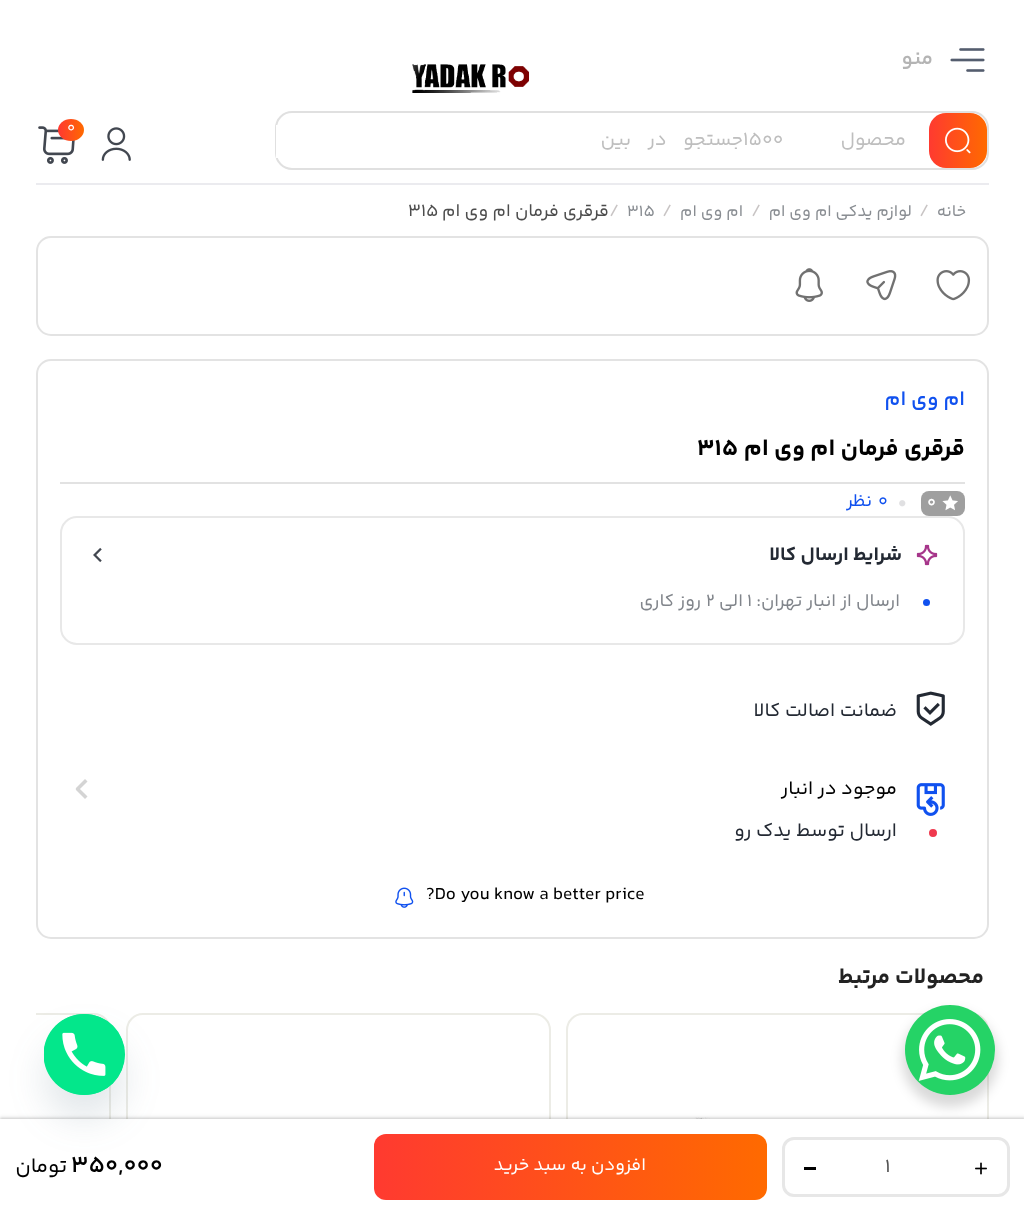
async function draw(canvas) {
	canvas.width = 1024;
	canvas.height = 1214;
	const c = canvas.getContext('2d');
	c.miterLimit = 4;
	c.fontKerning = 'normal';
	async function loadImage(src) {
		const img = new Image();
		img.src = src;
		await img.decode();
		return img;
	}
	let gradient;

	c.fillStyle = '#fff';
	c.fillRect(0, 0, 1024, 1214);
	c.drawImage(await loadImage('img1.png'), 950, 48, 35, 24);
	c.direction = 'rtl';
	c.font = '600 21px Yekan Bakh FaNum';
	c.fillStyle = '#b4b4b4';
	c.fillText('منو', 933, 64);
	c.drawImage(await loadImage('img2.png'), 412, 64, 118, 29);
	c.fillStyle = '#ebebef';
	c.fillRect(36, 183, 953, 2);
	c.drawImage(await loadImage('img3.png'), 101, 127, 30, 34);
	c.drawImage(await loadImage('img4.png'), 38, 126, 37, 38);
	gradient = c.createLinearGradient(59, 130, 84, 130);
	gradient.addColorStop(0, '#ff3a30');
	gradient.addColorStop(1, '#ff6a00');
	c.fillStyle = gradient;
	c.beginPath();
	c.ellipse(71, 130, 13, 11, 0, 0, 2 * Math.PI);
	c.fill();
	c.direction = 'ltr';
	c.font = '15px Yekan Bakh FaNum';
	c.fillStyle = '#fff';
	c.fillText('0', 67, 132);
	c.beginPath();
	c.roundRect(276, 112, 712, 57, 16);
	c.strokeStyle = '#e0e0e0';
	c.lineWidth = 2;
	c.stroke();
	gradient = c.createLinearGradient(929, 140, 987, 140);
	gradient.addColorStop(0, '#ff3a30');
	gradient.addColorStop(1, '#ff6a00');
	c.fillStyle = gradient;
	c.beginPath();
	c.roundRect(929, 113, 58, 55, 17);
	c.fill();
	c.drawImage(await loadImage('img5.png'), 945, 127, 26, 27);
	c.fillStyle = '#fff';
	c.fillRect(276, 125, 2, 33);
	c.direction = 'rtl';
	c.font = '19.5px Yekan Bakh FaNum';
	c.fillStyle = '#bebebe';
	c.fillText('محصول', 906, 145);
	c.direction = 'ltr';
	c.fillText('1500', 743, 145);
	c.wordSpacing = '12px';
	c.direction = 'rtl';
	c.fillText('جستجو در بین', 743, 145);
	c.wordSpacing = '0px';
	c.font = '16.5px Yekan Bakh FaNum';
	c.fillStyle = '#898d92';
	c.fillText('خانه', 966, 216);
	c.direction = 'ltr';
	c.font = '18px Yekan Bakh FaNum';
	c.fillStyle = '#c8c4c4';
	c.fillText('/', 919, 216);
	c.direction = 'rtl';
	c.font = '16.5px Yekan Bakh FaNum';
	c.fillStyle = '#898d92';
	c.fillText('لوازم یدکی ام وی ام', 912, 216);
	c.direction = 'ltr';
	c.font = '18px Yekan Bakh FaNum';
	c.fillStyle = '#c8c4c4';
	c.fillText('/', 751, 216);
	c.direction = 'rtl';
	c.font = '16.5px Yekan Bakh FaNum';
	c.fillStyle = '#898d92';
	c.fillText('ام وی ام', 743, 216);
	c.direction = 'ltr';
	c.font = '18px Yekan Bakh FaNum';
	c.fillStyle = '#c8c4c4';
	c.fillText('/', 662, 216);
	c.font = '16.5px Yekan Bakh FaNum';
	c.fillStyle = '#898d92';
	c.fillText('315', 627, 216);
	c.font = '18px Yekan Bakh FaNum';
	c.fillStyle = '#c8c4c4';
	c.fillText('/', 609, 216);
	c.direction = 'rtl';
	c.fillStyle = '#4d4d4d';
	c.fillText('قرقری فرمان ام وی ام', 609, 216);
	c.direction = 'ltr';
	c.fillText('315', 408, 216);
	c.beginPath();
	c.roundRect(37, 237, 951, 98, 14);
	c.strokeStyle = '#e3e3e3';
	c.stroke();
	c.drawImage(await loadImage('img6.png'), 936, 270, 35, 31);
	c.drawImage(await loadImage('img7.png'), 866, 270, 31, 31);
	c.drawImage(await loadImage('img8.png'), 795, 268, 28, 34);
	c.beginPath();
	c.roundRect(37, 360, 951, 578, 14);
	c.stroke();
	c.direction = 'rtl';
	c.font = '600 21px Yekan Bakh FaNum';
	c.fillStyle = '#1051ef';
	c.fillText('ام وی ام', 965, 405);
	c.font = 'bold 24px Yekan Bakh FaNum';
	c.fillStyle = '#000';
	c.fillText('قرقری فرمان ام وی ام', 965, 455);
	c.direction = 'ltr';
	c.fillText('315', 697, 455);
	c.fillStyle = '#e2e2e2';
	c.fillRect(60, 482, 905, 2);
	c.fillStyle = '#9f9f9f';
	c.beginPath();
	c.roundRect(921, 491, 44, 25, 8);
	c.fill();
	c.drawImage(await loadImage('img9.png'), 942, 495, 16, 16);
	c.font = '600 16.5px Yekan Bakh FaNum';
	c.fillStyle = '#fff';
	c.fillText('0', 927, 507);
	c.drawImage(await loadImage('img10.png'), 899, 500, 7, 7);
	c.font = '18px Yekan Bakh FaNum';
	c.fillStyle = '#1051ef';
	c.fillText('0', 878, 506);
	c.direction = 'rtl';
	c.fillText('نظر', 872, 506);
	c.beginPath();
	c.roundRect(61, 517, 903, 127, 16);
	c.strokeStyle = '#e8e8e8';
	c.stroke();
	c.drawImage(await loadImage('img11.png'), 916, 544, 22, 22);
	c.font = 'bold 19.5px Yekan Bakh FaNum';
	c.fillStyle = '#232933';
	c.fillText('شرایط ارسال کالا', 902, 560);
	c.drawImage(await loadImage('img12.png'), 93, 547, 9, 16);
	c.fillStyle = '#1051ef';
	c.beginPath();
	c.arc(926.5, 602.5, 3.5, 0, 2 * Math.PI);
	c.fill();
	c.font = '18px Yekan Bakh FaNum';
	c.fillStyle = '#81858b';
	c.fillText('ارسال از انبار تهران:', 900, 606);
	c.direction = 'ltr';
	c.fillText('1', 747, 606);
	c.direction = 'rtl';
	c.fillText('الی', 743, 606);
	c.direction = 'ltr';
	c.fillText('2', 706, 606);
	c.direction = 'rtl';
	c.fillText('روز کاری', 701, 606);
	c.drawImage(await loadImage('img13.png'), 916, 691, 29, 35);
	c.font = '19.5px Yekan Bakh FaNum';
	c.fillStyle = '#232933';
	c.fillText('ضمانت اصالت کالا', 897, 716);
	c.drawImage(await loadImage('img14.png'), 916, 783, 29, 33);
	c.fillStyle = '#000';
	c.fillText('موجود در انبار', 897, 794);
	c.drawImage(await loadImage('img15.png'), 75, 779, 13, 20);
	c.fillStyle = '#ef394e';
	c.beginPath();
	c.arc(933, 833, 5, 0, 2 * Math.PI);
	c.fill();
	c.strokeStyle = '#fff';
	c.stroke();
	c.fillStyle = '#232933';
	c.fillText('ارسال توسط یدک رو', 897, 836);
	c.beginPath();
	c.roundRect(567, 1014, 421, 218, 16);
	c.strokeStyle = '#ecece6';
	c.stroke();
	c.drawImage(await loadImage('img18.png'), 694, 1117, 131, 2);
	c.beginPath();
	c.roundRect(127, 1014, 423, 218, 16);
	c.stroke();
	c.save();
	c.beginPath();
	c.rect(36, 1011, 953, 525);
	c.clip();
	c.beginPath();
	c.roundRect(-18, 1014, 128, 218, 16);
	c.stroke();
	c.restore();
	c.fillStyle = '#0000000d';
	c.filter = 'blur(1.5px)';
	c.beginPath();
	c.rect(0, 1116, 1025, 96);
	c.fill();
	c.filter = 'none';
	c.fillStyle = '#00000024';
	c.filter = 'blur(1px)';
	c.beginPath();
	c.rect(0, 1118, 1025, 96);
	c.fill();
	c.filter = 'none';
	c.fillStyle = '#fff';
	c.fillRect(0, 1119, 1024, 95);
	c.beginPath();
	c.roundRect(783.5, 1138.5, 225, 57, 10.5);
	c.strokeStyle = '#e7e7e7';
	c.lineWidth = 3;
	c.stroke();
	c.drawImage(await loadImage('img16.png'), 975, 1162, 12, 13);
	c.direction = 'ltr';
	c.fillStyle = '#535353';
	c.fillText('1', 885, 1172);
	c.fillStyle = '#000';
	c.fillRect(804, 1167, 12, 3);
	gradient = c.createLinearGradient(374, 1167, 767, 1167);
	gradient.addColorStop(0, '#ff3a30');
	gradient.addColorStop(1, '#ff6a00');
	c.fillStyle = gradient;
	c.beginPath();
	c.roundRect(374, 1134, 393, 66, 12);
	c.fill();
	c.direction = 'rtl';
	c.font = '18px Yekan Bakh FaNum';
	c.fillStyle = '#fff';
	c.fillText('افزودن به سبد خرید', 646, 1170);
	c.direction = 'ltr';
	c.font = '600 24px Yekan Bakh FaNum';
	c.fillStyle = '#000';
	c.fillText('350,000', 71, 1172);
	c.direction = 'rtl';
	c.font = '21px Yekan Bakh FaNum';
	c.fillText('تومان', 67, 1172);
	c.direction = 'ltr';
	c.font = '18px Yekan Bakh FaNum';
	c.fillText('?Do you know a better price', 426, 899);
	c.drawImage(await loadImage('img17.png'), 395, 887, 19, 21);
	c.direction = 'rtl';
	c.font = 'bold 22.5px Yekan Bakh FaNum';
	c.fillStyle = '#222';
	c.fillText('محصولات مرتبط', 984, 983);
	c.fillStyle = '#00000026';
	c.filter = 'blur(6px)';
	c.beginPath();
	c.roundRect(902, 1011, 96, 96, 48);
	c.fill();
	c.filter = 'none';
	c.fillStyle = '#25d366';
	c.beginPath();
	c.arc(950, 1050, 45, 0, 2 * Math.PI);
	c.fill();
	c.drawImage(await loadImage('img19.png'), 918, 1019, 63, 62);
	c.fillStyle = '#49687e29';
	c.filter = 'blur(18px)';
	c.beginPath();
	c.roundRect(44, 1038, 81, 81, 40.5);
	c.fill();
	c.filter = 'none';
	c.fillStyle = '#03e78b';
	c.beginPath();
	c.arc(84.5, 1054.5, 40.5, 0, 2 * Math.PI);
	c.fill();
	c.drawImage(await loadImage('img20.png'), 44, 1014, 81, 81);
}

draw(document.querySelector('canvas'));
